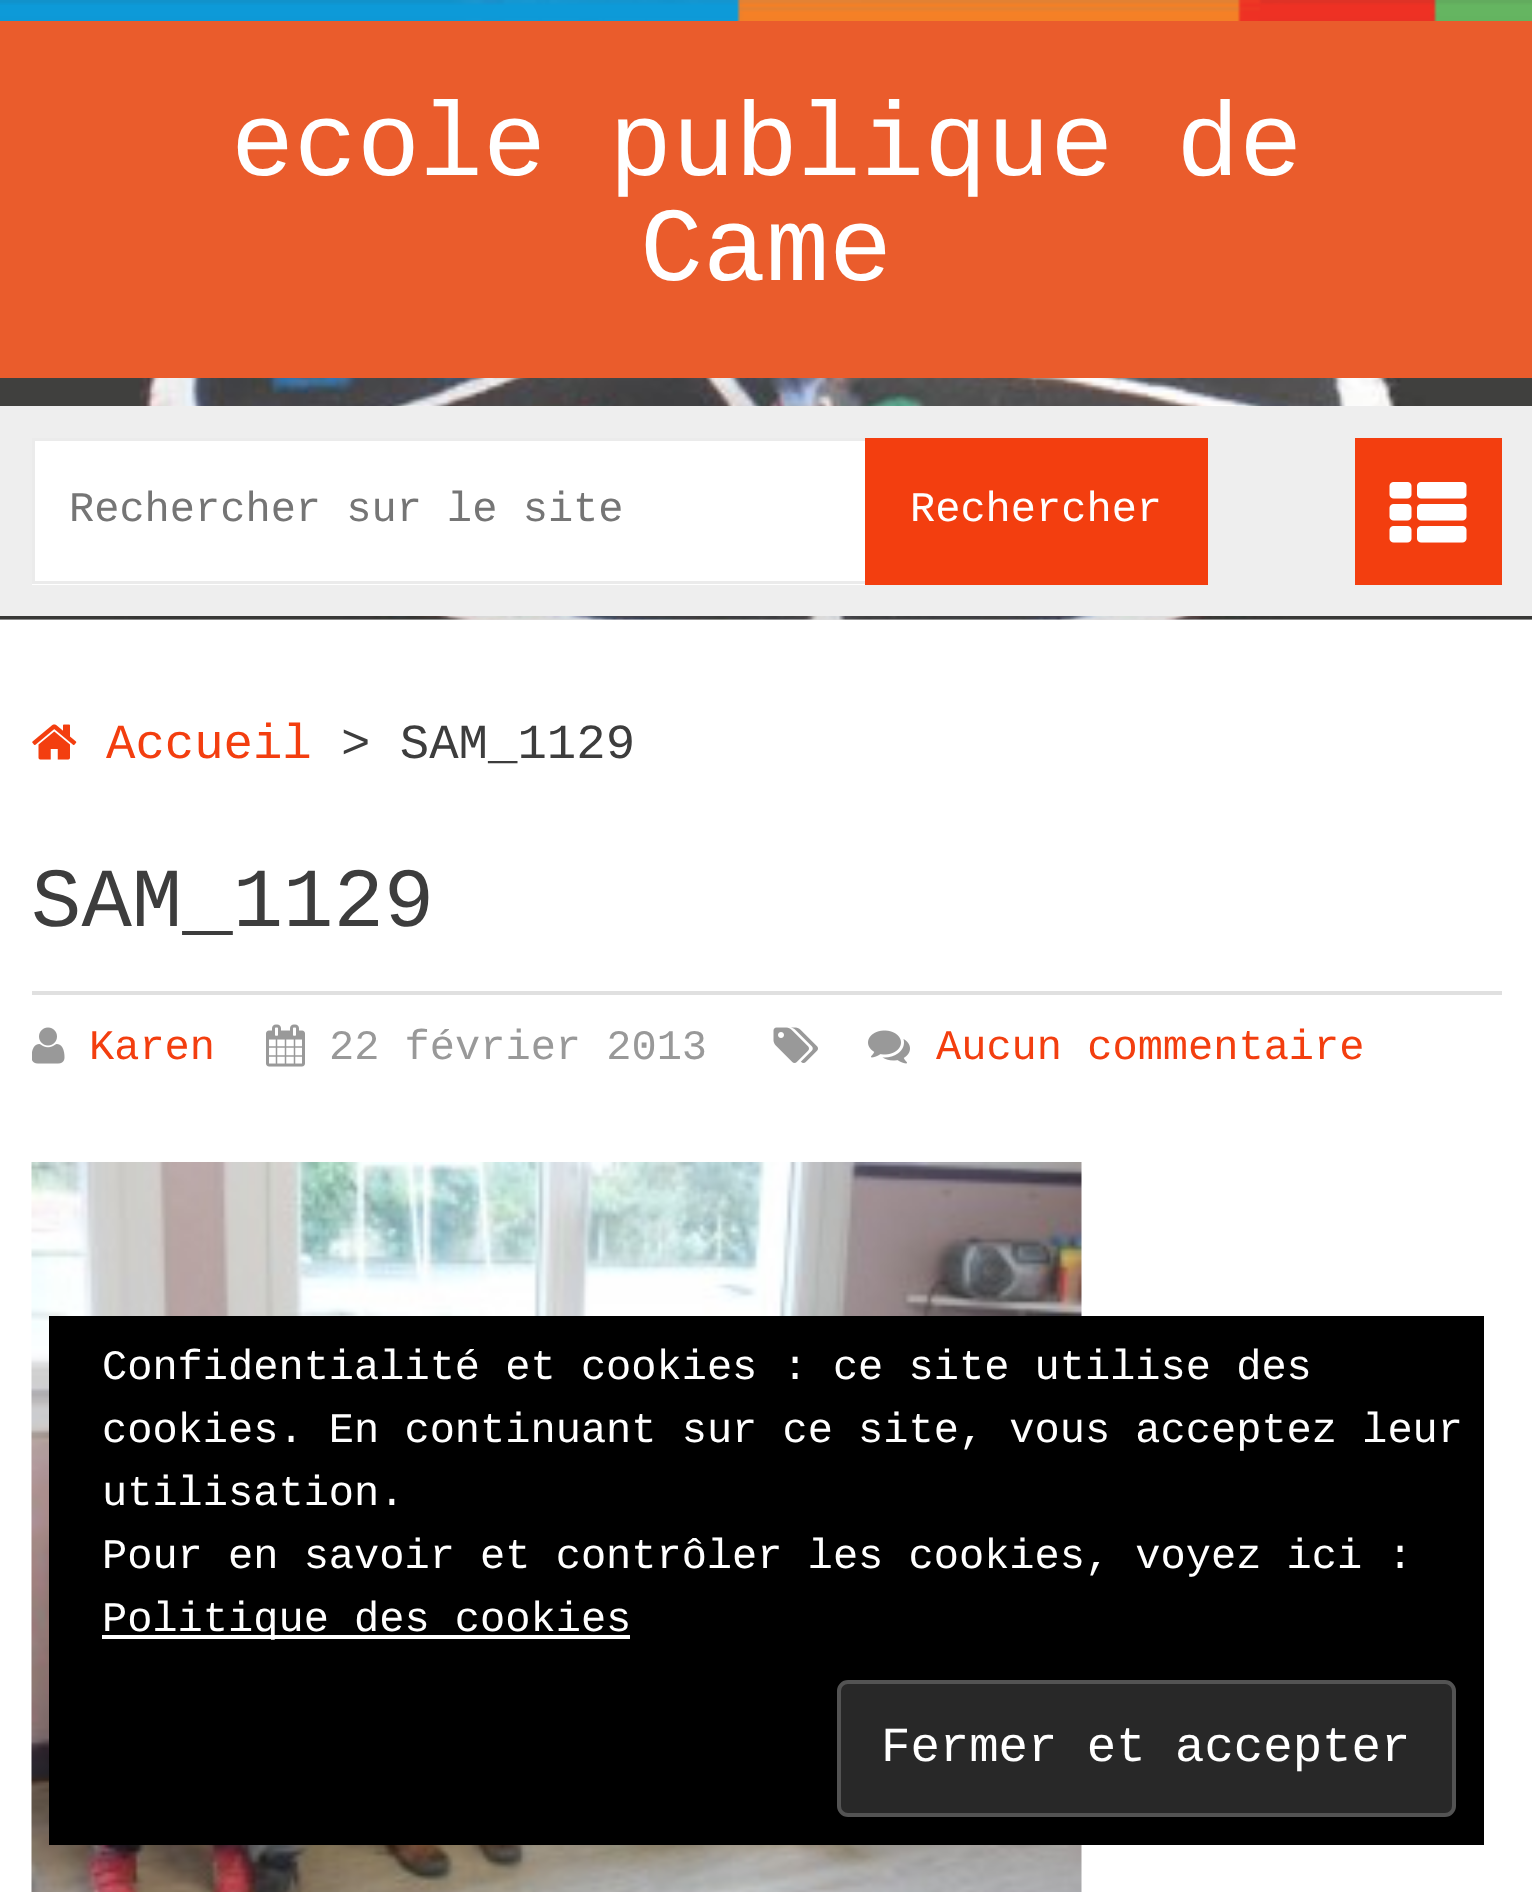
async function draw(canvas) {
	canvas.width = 1532;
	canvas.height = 1892;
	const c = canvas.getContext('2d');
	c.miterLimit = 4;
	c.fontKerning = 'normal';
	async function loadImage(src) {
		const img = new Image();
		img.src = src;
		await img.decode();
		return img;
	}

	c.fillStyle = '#fff';
	c.fillRect(0, 0, 1532, 1892);
	c.drawImage(await loadImage('img1.png'), 0, 0, 1532, 620);
	c.fillStyle = '#0000001f';
	c.fillRect(0, 616, 1532, 4);
	c.drawImage(await loadImage('img2.png'), 0, 0, 1532, 21);
	c.fillStyle = '#ea5c2c';
	c.fillRect(0, 21, 1532, 357);
	c.font = '105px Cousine';
	c.fillStyle = '#fff';
	c.fillText('ecole publique de', 231, 175);
	c.fillText('Came', 640, 280);
	c.fillStyle = '#eee';
	c.fillRect(0, 406, 1532, 210);
	c.fillStyle = '#fff';
	c.fillRect(32, 438, 833, 147);
	c.fillStyle = '#ebebeb';
	c.beginPath();
	c.moveTo(32, 438);
	c.lineTo(914, 438);
	c.lineTo(914, 441);
	c.lineTo(35, 441);
	c.closePath();
	c.fill();
	c.beginPath();
	c.moveTo(914, 584);
	c.lineTo(32, 584);
	c.lineTo(35, 581);
	c.lineTo(914, 581);
	c.closePath();
	c.fill();
	c.fillStyle = '#00000014';
	c.beginPath();
	c.moveTo(32, 584);
	c.lineTo(32, 438);
	c.lineTo(35, 441);
	c.lineTo(35, 581);
	c.closePath();
	c.fill();
	c.font = '42px Cousine';
	c.fillStyle = '#757575';
	c.fillText('Rechercher sur le site', 69, 521);
	c.fillStyle = '#f33e0f';
	c.fillRect(865, 438, 343, 147);
	c.fillStyle = '#fff';
	c.fillText('Rechercher', 910, 521);
	c.fillStyle = '#f33e0f';
	c.fillRect(1355, 438, 147, 147);
	c.drawImage(await loadImage('img3.png'), 1389, 482, 78, 61);
	c.drawImage(await loadImage('img4.png'), 32, 724, 45, 36);
	c.font = '49px Cousine';
	c.fillText('Accueil', 106, 758);
	c.fillStyle = '#3d3d3d';
	c.fillText('> SAM_1129', 341, 758);
	c.fillStyle = '#e0e0e0';
	c.fillRect(32, 991, 1470, 4);
	c.font = '84px Cousine';
	c.fillStyle = '#3d3d3d';
	c.fillText('SAM_1129', 31, 926);
	c.drawImage(await loadImage('img5.png'), 32, 1027, 33, 37);
	c.font = '42px Cousine';
	c.fillStyle = '#f33e0f';
	c.fillText('Karen', 89, 1059);
	c.drawImage(await loadImage('img6.png'), 266, 1024, 39, 43);
	c.fillStyle = '#999';
	c.fillText('22 février 2013', 329, 1059);
	c.drawImage(await loadImage('img7.png'), 773, 1027, 45, 36);
	c.drawImage(await loadImage('img8.png'), 868, 1030, 42, 34);
	c.fillStyle = '#f33e0f';
	c.fillText('Aucun commentaire', 936, 1059);
	c.drawImage(await loadImage('img9.png'), 31, 1162, 1051, 730);
	c.fillStyle = '#000';
	c.fillRect(49, 1316, 1435, 529);
	c.fillStyle = '#fff';
	for (const [text, x, y] of [
		['Confidentialité et cookies : ce site utilise des', 102, 1379],
		['cookies. En continuant sur ce site, vous acceptez leur', 102, 1442],
		['utilisation.', 102, 1505],
		['Pour en savoir et contrôler les cookies, voyez ici :', 102, 1568],
	]) {
		c.fillText(text, x, y);
	}
	c.fillRect(102, 1635, 528, 4);
	c.fillText('Politique des cookies', 102, 1631);
	c.fillStyle = '#282828';
	c.beginPath();
	c.roundRect(839, 1682, 615, 133, 9);
	c.fill();
	c.strokeStyle = '#535353';
	c.lineWidth = 4;
	c.stroke();
	c.font = '49px Cousine';
	c.fillStyle = '#fff';
	c.fillText('Fermer et accepter', 881, 1761);
}

draw(document.querySelector('canvas'));
